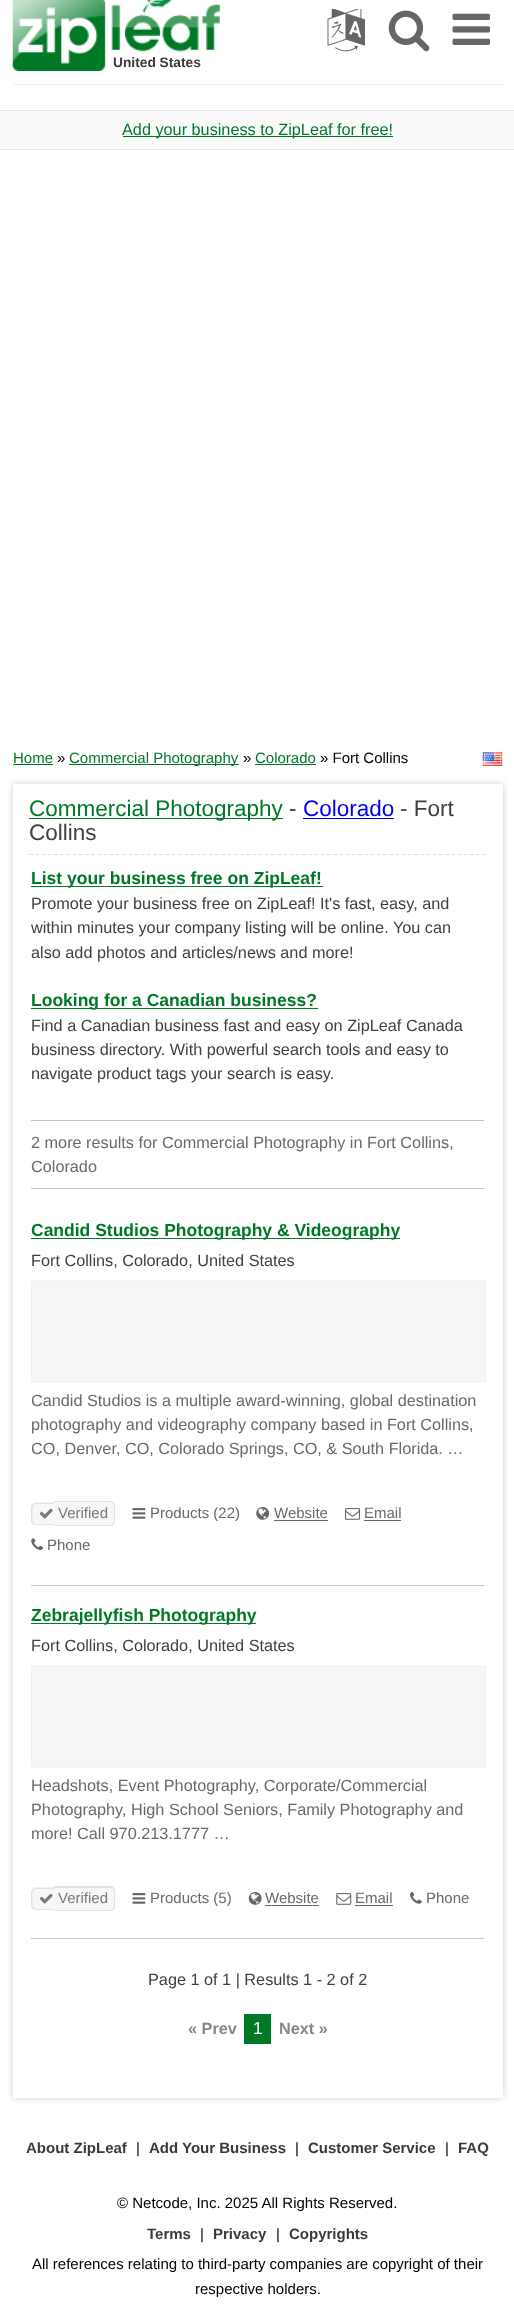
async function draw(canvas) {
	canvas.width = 514;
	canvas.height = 2308;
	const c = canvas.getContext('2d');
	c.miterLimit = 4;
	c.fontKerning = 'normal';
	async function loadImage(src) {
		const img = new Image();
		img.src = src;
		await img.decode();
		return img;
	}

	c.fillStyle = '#fff';
	c.fillRect(0, 0, 514, 2308);
	c.fillStyle = '#f0f0f0';
	c.fillRect(13, 84, 490, 1);
	c.drawImage(await loadImage('img1.png'), 327, 9, 38, 43);
	c.drawImage(await loadImage('img2.png'), 388, 10, 42, 42);
	c.drawImage(await loadImage('img3.png'), 452, 13, 38, 32);
	c.drawImage(await loadImage('img4.png'), 12, 0, 208, 71);
	c.font = 'bold 13.75px Liberation Sans';
	c.fillStyle = '#3b3a3a';
	c.fillText('United States', 113, 67);
	for (const [x, y, w, h, color] of [
		[0, 111, 514, 38, '#fafafa'],
		[0, 110, 514, 1, '#e8e8e8'],
		[0, 149, 514, 1, '#e8e8e8'],
		[123, 136, 270, 1, '#007927'],
	]) {
		c.fillStyle = color;
		c.fillRect(x, y, w, h);
	}
	c.font = '16.25px Liberation Sans';
	c.fillText('Add your business to ZipLeaf for free!', 122, 135);
	c.font = '15px Liberation Sans';
	c.fillText('Home', 13, 763);
	c.fillRect(13, 764, 40, 1);
	c.fillStyle = '#000';
	c.fillText('»', 57, 763);
	c.fillStyle = '#007927';
	c.fillRect(69, 764, 170, 1);
	c.fillText('Commercial Photography', 69, 763);
	c.fillStyle = '#000';
	c.fillText('»', 243, 763);
	c.fillStyle = '#007927';
	c.fillText('Colorado', 255, 763);
	c.fillRect(255, 764, 61, 1);
	c.fillStyle = '#000';
	c.fillText('» Fort Collins', 320, 763);
	c.drawImage(await loadImage('img5.png'), 482, 752, 21, 14);
	c.fillStyle = '#ccc';
	c.filter = 'blur(3px)';
	c.beginPath();
	c.rect(13, 784, 490, 1314);
	c.fill();
	c.filter = 'none';
	c.fillStyle = '#fff';
	c.fillRect(13, 784, 490, 1314);
	c.beginPath();
	c.moveTo(29, 854.5);
	c.lineTo(486, 854.5);
	c.strokeStyle = '#e0e0e0';
	c.lineWidth = 1.2;
	c.setLineDash([3.75, 2.46]);
	c.stroke();
	c.fillStyle = '#007927';
	c.fillRect(29, 818, 254, 1);
	c.font = '22.5px Liberation Sans';
	c.fillText('Commercial Photography', 29, 816);
	c.fillStyle = '#404040';
	c.fillText('-', 289, 816);
	c.fillStyle = '#00e';
	c.fillText('Colorado', 303, 816);
	c.fillRect(303, 818, 91, 1);
	c.fillStyle = '#404040';
	c.fillText('- Fort', 400, 816);
	c.fillText('Collins', 29, 840);
	c.fillStyle = '#007927';
	c.fillRect(31, 886, 292, 1);
	c.font = 'bold 17.5px Liberation Sans';
	c.fillText('List your business free on ZipLeaf!', 31, 884);
	c.font = '16.25px Liberation Sans';
	c.fillStyle = '#404040';
	for (const [text, x, y] of [
		['Promote your business free on ZipLeaf! It\'s fast, easy, and', 31, 909],
		['within minutes your company listing will be online. You can', 31, 933],
		['also add photos and articles/news and more!', 31, 958],
	]) {
		c.fillText(text, x, y);
	}
	c.fillStyle = '#007927';
	c.fillRect(31, 1008, 287, 1);
	c.font = 'bold 17.5px Liberation Sans';
	c.fillText('Looking for a Canadian business?', 31, 1006);
	c.font = '16.25px Liberation Sans';
	c.fillStyle = '#404040';
	for (const [text, x, y] of [
		['Find a Canadian business fast and easy on ZipLeaf Canada', 31, 1031],
		['business directory. With powerful search tools and easy to', 31, 1055],
		['navigate product tags your search is easy.', 31, 1079],
	]) {
		c.fillText(text, x, y);
	}
	c.fillStyle = '#c5c5c5';
	c.fillRect(31, 1120, 453, 1);
	c.fillRect(31, 1188, 453, 1);
	c.fillStyle = '#696969';
	c.fillText('2 more results for Commercial Photography in Fort Collins,', 31, 1148);
	c.fillText('Colorado', 31, 1172);
	c.fillStyle = '#c5c5c5';
	c.fillRect(31, 1585, 453, 1);
	c.fillStyle = '#007927';
	c.fillRect(31, 1238, 369, 1);
	c.font = 'bold 17.5px Liberation Sans';
	c.fillText('Candid Studios Photography & Videography', 31, 1236);
	c.font = '16.25px Liberation Sans';
	c.fillStyle = '#404040';
	c.fillText('Fort Collins, Colorado, United States', 31, 1266);
	c.fillStyle = '#f6f6f6';
	c.beginPath();
	c.rect(31.5, 1280.5, 454, 102);
	c.fill();
	c.strokeStyle = '#f2f2f2';
	c.lineWidth = 1;
	c.setLineDash([]);
	c.stroke();
	c.fillStyle = '#696969';
	for (const [text, x, y] of [
		['Candid Studios is a multiple award-winning, global destination', 31, 1406],
		['photography and videography company based in Fort Collins,', 31, 1430],
		['CO, Denver, CO, Colorado Springs, CO, & South Florida. …', 31, 1454],
	]) {
		c.fillText(text, x, y);
	}
	c.fillStyle = '#f7f7f7';
	c.beginPath();
	c.roundRect(31, 1503, 23, 22, [5, 0, 0, 5]);
	c.fill();
	c.fillStyle = '#e3e3e3';
	c.beginPath();
	c.moveTo(36, 1502.5);
	c.lineTo(54, 1502.5);
	c.lineTo(54, 1525);
	c.lineTo(36, 1525);
	c.bezierCurveTo(33.5, 1525, 31, 1523, 31, 1520);
	c.lineTo(31, 1507.5);
	c.bezierCurveTo(31, 1504.5, 33.5, 1502.5, 36, 1502.5);
	c.closePath();
	c.moveTo(36, 1504);
	c.lineTo(54, 1504);
	c.lineTo(54, 1524);
	c.lineTo(36, 1524);
	c.bezierCurveTo(34, 1524, 32.5, 1522, 32.5, 1520);
	c.lineTo(32.5, 1507.5);
	c.bezierCurveTo(32.5, 1505.5, 34, 1504, 36, 1504);
	c.closePath();
	c.fill('evenodd');
	c.fillStyle = '#f7f7f7';
	c.beginPath();
	c.roundRect(54, 1501, 61, 25, [0, 5, 5, 0]);
	c.fill();
	c.fillStyle = '#e3e3e3';
	c.beginPath();
	c.moveTo(54, 1501);
	c.lineTo(110, 1501);
	c.bezierCurveTo(113, 1501, 115, 1503, 115, 1506);
	c.lineTo(115, 1521);
	c.bezierCurveTo(115, 1524, 113, 1526, 110, 1526);
	c.lineTo(54, 1526);
	c.closePath();
	c.moveTo(54, 1502);
	c.lineTo(110, 1502);
	c.bezierCurveTo(112, 1502, 114, 1504, 114, 1506);
	c.lineTo(114, 1521);
	c.bezierCurveTo(114, 1523, 112, 1525, 110, 1525);
	c.lineTo(54, 1525);
	c.closePath();
	c.fill('evenodd');
	c.drawImage(await loadImage('img6.png'), 39, 1508, 14, 11);
	c.font = '15px Liberation Sans';
	c.fillStyle = '#7a7a7a';
	c.fillText('Verified', 58, 1518);
	c.drawImage(await loadImage('img7.png'), 132, 1508, 14, 11);
	c.fillStyle = '#696969';
	c.fillText('Products (22)', 150, 1518);
	c.drawImage(await loadImage('img8.png'), 256, 1507, 14, 13);
	c.fillText('Website', 274, 1518);
	c.fillStyle = '#666';
	c.fillRect(274, 1520, 54, 1);
	c.drawImage(await loadImage('img9.png'), 345, 1508, 15, 12);
	c.fillStyle = '#696969';
	c.fillText('Email', 364, 1518);
	c.fillStyle = '#666';
	c.fillRect(364, 1520, 37, 1);
	c.drawImage(await loadImage('img10.png'), 31, 1538, 12, 12);
	c.fillStyle = '#696969';
	c.fillText('Phone', 47, 1550);
	c.fillStyle = '#c5c5c5';
	c.fillRect(31, 1938, 453, 1);
	c.fillStyle = '#007927';
	c.fillRect(31, 1623, 225, 1);
	c.font = 'bold 17.5px Liberation Sans';
	c.fillText('Zebrajellyfish Photography', 31, 1621);
	c.font = '16.25px Liberation Sans';
	c.fillStyle = '#404040';
	c.fillText('Fort Collins, Colorado, United States', 31, 1651);
	c.fillStyle = '#f6f6f6';
	c.beginPath();
	c.rect(31.5, 1665.5, 454, 102);
	c.fill();
	c.stroke();
	c.fillStyle = '#696969';
	for (const [text, x, y] of [
		['Headshots, Event Photography, Corporate/Commercial', 31, 1791],
		['Photography, High School Seniors, Family Photography and', 31, 1815],
		['more! Call 970.213.1777 …', 31, 1839],
	]) {
		c.fillText(text, x, y);
	}
	c.fillStyle = '#f7f7f7';
	c.beginPath();
	c.roundRect(31, 1888, 23, 22, [5, 0, 0, 5]);
	c.fill();
	c.fillStyle = '#e3e3e3';
	c.beginPath();
	c.moveTo(36, 1887.5);
	c.lineTo(54, 1887.5);
	c.lineTo(54, 1910);
	c.lineTo(36, 1910);
	c.bezierCurveTo(33.5, 1910, 31, 1908, 31, 1905);
	c.lineTo(31, 1892.5);
	c.bezierCurveTo(31, 1889.5, 33.5, 1887.5, 36, 1887.5);
	c.closePath();
	c.moveTo(36, 1889);
	c.lineTo(54, 1889);
	c.lineTo(54, 1909);
	c.lineTo(36, 1909);
	c.bezierCurveTo(34, 1909, 32.5, 1907, 32.5, 1905);
	c.lineTo(32.5, 1892.5);
	c.bezierCurveTo(32.5, 1890.5, 34, 1889, 36, 1889);
	c.closePath();
	c.fill('evenodd');
	c.fillStyle = '#f7f7f7';
	c.beginPath();
	c.roundRect(54, 1886, 61, 25, [0, 5, 5, 0]);
	c.fill();
	c.fillStyle = '#e3e3e3';
	c.beginPath();
	c.moveTo(54, 1886);
	c.lineTo(110, 1886);
	c.bezierCurveTo(113, 1886, 115, 1888, 115, 1891);
	c.lineTo(115, 1906);
	c.bezierCurveTo(115, 1909, 113, 1911, 110, 1911);
	c.lineTo(54, 1911);
	c.closePath();
	c.moveTo(54, 1888);
	c.lineTo(110, 1888);
	c.bezierCurveTo(112, 1888, 114, 1889, 114, 1891);
	c.lineTo(114, 1906);
	c.bezierCurveTo(114, 1908, 112, 1910, 110, 1910);
	c.lineTo(54, 1910);
	c.closePath();
	c.fill('evenodd');
	c.drawImage(await loadImage('img6.png'), 39, 1893, 14, 11);
	c.font = '15px Liberation Sans';
	c.fillStyle = '#7a7a7a';
	c.fillText('Verified', 58, 1903);
	c.drawImage(await loadImage('img7.png'), 132, 1893, 14, 11);
	c.fillStyle = '#696969';
	c.fillText('Products (5)', 150, 1903);
	c.drawImage(await loadImage('img11.png'), 248, 1892, 14, 13);
	c.fillText('Website', 265, 1903);
	c.fillStyle = '#666';
	c.fillRect(265, 1905, 54, 1);
	c.drawImage(await loadImage('img12.png'), 336, 1893, 16, 12);
	c.fillStyle = '#696969';
	c.fillText('Email', 355, 1903);
	c.fillStyle = '#666';
	c.fillRect(355, 1905, 38, 1);
	c.drawImage(await loadImage('img13.png'), 410, 1892, 12, 12);
	c.fillStyle = '#696969';
	c.fillText('Phone', 426, 1903);
	c.font = '16.25px Liberation Sans';
	c.fillStyle = '#404040';
	c.fillText('Page 1 of 1 | Results 1 - 2 of 2', 148, 1985);
	c.font = 'bold 16.25px Liberation Sans';
	c.fillStyle = '#888';
	c.fillText('« Prev', 188, 2034);
	c.fillStyle = '#007927';
	c.fillRect(244, 2014, 27, 30);
	c.font = '17.5px Liberation Sans';
	c.fillStyle = '#fff';
	c.fillText('1', 253, 2034);
	c.font = 'bold 16.25px Liberation Sans';
	c.fillStyle = '#888';
	c.fillText('Next »', 279, 2034);
	c.font = 'bold 15px Liberation Sans';
	c.fillStyle = '#3b3a3a';
	c.fillText('About ZipLeaf', 26, 2153);
	c.font = '15px Liberation Sans';
	c.fillStyle = '#000';
	c.fillText('|', 136, 2153);
	c.font = 'bold 15px Liberation Sans';
	c.fillStyle = '#3b3a3a';
	c.fillText('Add Your Business', 149, 2153);
	c.font = '15px Liberation Sans';
	c.fillStyle = '#000';
	c.fillText('|', 295, 2153);
	c.font = 'bold 15px Liberation Sans';
	c.fillStyle = '#3b3a3a';
	c.fillText('Customer Service', 308, 2153);
	c.font = '15px Liberation Sans';
	c.fillStyle = '#000';
	c.fillText('|', 445, 2153);
	c.font = 'bold 15px Liberation Sans';
	c.fillStyle = '#3b3a3a';
	c.fillText('FAQ', 458, 2153);
	c.font = '15px Liberation Sans';
	c.fillStyle = '#000';
	c.fillText('© Netcode, Inc. 2025 All Rights Reserved.', 117, 2208);
	c.font = 'bold 15px Liberation Sans';
	c.fillStyle = '#3b3a3a';
	c.fillText('Terms', 147, 2239);
	c.font = '15px Liberation Sans';
	c.fillStyle = '#000';
	c.fillText('|', 200, 2239);
	c.font = 'bold 15px Liberation Sans';
	c.fillStyle = '#3b3a3a';
	c.fillText('Privacy', 213, 2239);
	c.font = '15px Liberation Sans';
	c.fillStyle = '#000';
	c.fillText('|', 276, 2239);
	c.font = 'bold 15px Liberation Sans';
	c.fillStyle = '#3b3a3a';
	c.fillText('Copyrights', 289, 2239);
	c.font = '15px Liberation Sans';
	c.fillStyle = '#000';
	c.fillText('All references relating to third-party companies are copyright of their', 32, 2269);
	c.fillText('respective holders.', 195, 2294);
}

draw(document.querySelector('canvas'));
